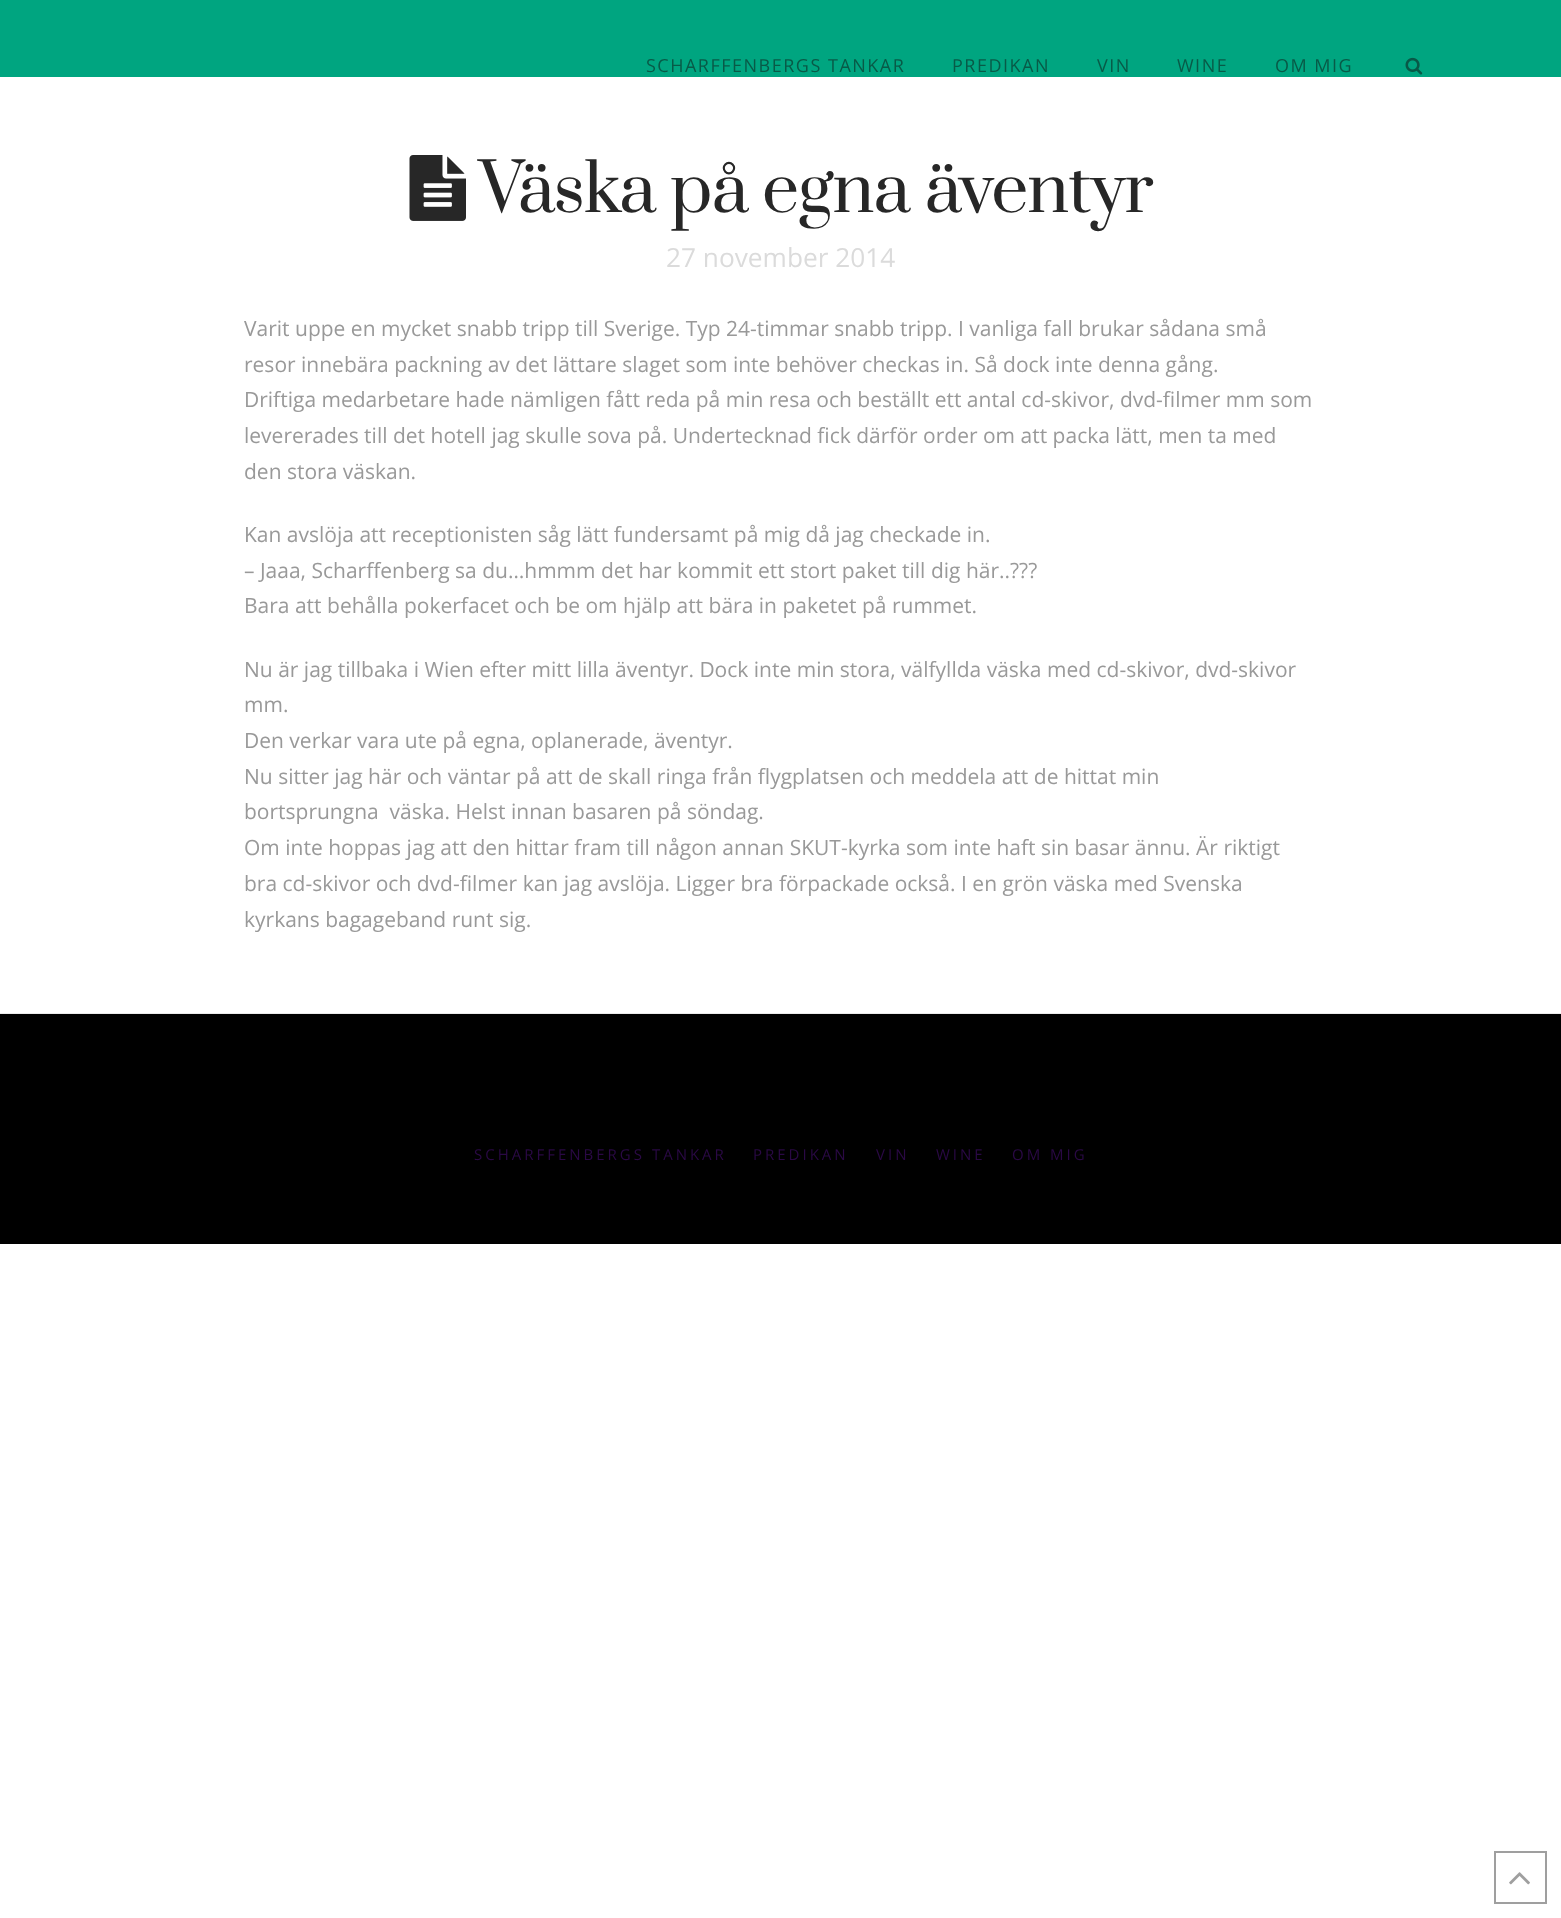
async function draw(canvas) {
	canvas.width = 1561;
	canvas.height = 1918;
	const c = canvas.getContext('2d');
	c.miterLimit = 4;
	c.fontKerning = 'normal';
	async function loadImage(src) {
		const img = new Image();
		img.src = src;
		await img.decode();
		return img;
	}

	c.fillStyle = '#fff';
	c.fillRect(0, 0, 1561, 1918);
	c.fillStyle = '#00a580';
	c.fillRect(0, 0, 1561, 77);
	c.letterSpacing = '1.5px';
	c.font = '18px Open Sans';
	c.fillStyle = '#085a47';
	for (const [text, x, y] of [
		['SCHARFFENBERGS TANKAR', 646, 72],
		['PREDIKAN', 952, 72],
		['VIN', 1097, 72],
		['WINE', 1177, 72],
		['OM MIG', 1275, 72],
	]) {
		c.fillText(text, x, y);
	}
	c.drawImage(await loadImage('img1.png'), 1405, 57, 18, 18);
	c.fillStyle = '#ececec';
	c.fillRect(0, 1013, 1561, 1);
	c.drawImage(await loadImage('img2.png'), 409, 155, 57, 66);
	c.letterSpacing = '-1px';
	c.font = '66px Prata';
	c.fillStyle = '#272727';
	c.fillText('Väska på egna äventyr', 479, 212);
	c.letterSpacing = '0px';
	c.font = '26.25px Open Sans';
	c.fillStyle = '#dbdbdb';
	c.fillText('27 november 2014', 666, 267);
	c.font = '21px Open Sans';
	c.fillStyle = '#999';
	for (const [text, x, y] of [
		['Varit uppe en mycket snabb tripp till Sverige. Typ 24-timmar snabb tripp. I vanliga fall brukar sådana små', 244, 336],
		['resor innebära packning av det lättare slaget som inte behöver checkas in. Så dock inte denna gång.', 244, 372],
		['Driftiga medarbetare hade nämligen fått reda på min resa och beställt ett antal cd-skivor, dvd-filmer mm som', 244, 407],
		['levererades till det hotell jag skulle sova på. Undertecknad fick därför order om att packa lätt, men ta med', 244, 443],
		['den stora väskan.', 244, 479],
		['Kan avslöja att receptionisten såg lätt fundersamt på mig då jag checkade in.', 244, 542],
		['– Jaaa, Scharffenberg sa du…hmmm det har kommit ett stort paket till dig här..???', 244, 578],
		['Bara att behålla pokerfacet och be om hjälp att bära in paketet på rummet.', 244, 613],
		['Nu är jag tillbaka i Wien efter mitt lilla äventyr. Dock inte min stora, välfyllda väska med cd-skivor, dvd-skivor', 244, 677],
		['mm.', 244, 712],
		['Den verkar vara ute på egna, oplanerade, äventyr.', 244, 748],
		['Nu sitter jag här och väntar på att de skall ringa från flygplatsen och meddela att de hittat min', 244, 784],
		['bortsprungna  väska. Helst innan basaren på söndag.', 244, 819],
		['Om inte hoppas jag att den hittar fram till någon annan SKUT-kyrka som inte haft sin basar ännu. Är riktigt', 244, 855],
		['bra cd-skivor och dvd-filmer kan jag avslöja. Ligger bra förpackade också. I en grön väska med Svenska', 244, 891],
		['kyrkans bagageband runt sig.', 244, 927],
	]) {
		c.fillText(text, x, y);
	}
	c.fillStyle = '#000';
	c.fillRect(0, 1014, 1561, 230);
	c.letterSpacing = '3px';
	c.font = '15px Open Sans';
	c.fillStyle = '#2a0945';
	for (const [text, x, y] of [
		['SCHARFFENBERGS TANKAR', 474, 1160],
		['PREDIKAN', 753, 1160],
		['VIN', 876, 1160],
		['WINE', 936, 1160],
		['OM MIG', 1012, 1160],
	]) {
		c.fillText(text, x, y);
	}
	c.strokeStyle = '#9f9f9f';
	c.lineWidth = 2;
	c.strokeRect(1495, 1852, 51, 51);
	c.drawImage(await loadImage('img3.png'), 1509, 1872, 21, 13);
}

draw(document.querySelector('canvas'));
